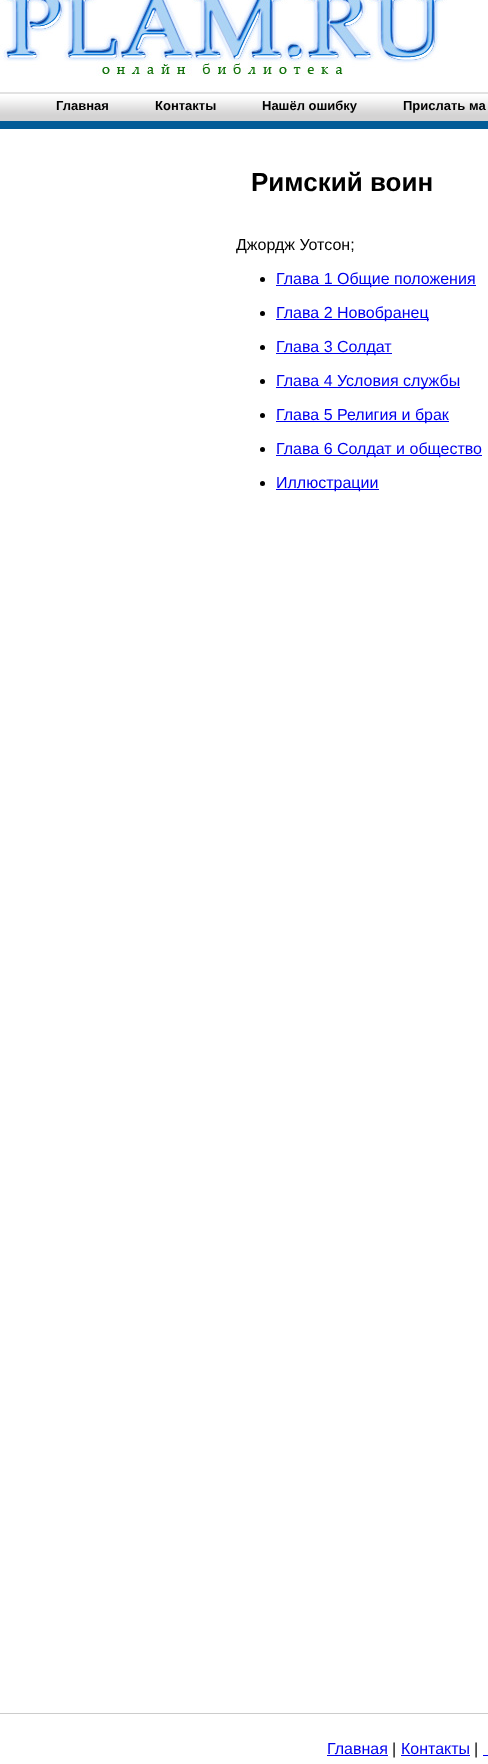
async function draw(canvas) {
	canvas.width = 488;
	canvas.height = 1764;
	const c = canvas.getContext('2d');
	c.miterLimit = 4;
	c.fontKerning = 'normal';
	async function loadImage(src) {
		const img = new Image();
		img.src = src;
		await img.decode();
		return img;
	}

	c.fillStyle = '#fff';
	c.fillRect(0, 0, 488, 1764);
	c.drawImage(await loadImage('img1.png'), 0, 0, 447, 76);
	c.drawImage(await loadImage('img2.png'), 0, 92, 488, 37);
	c.font = 'bold 13px Liberation Sans';
	c.fillStyle = '#000';
	for (const [text, x, y] of [
		['Главная', 56, 110],
		['Контакты', 155, 110],
		['Нашёл ошибку', 262, 110],
		['Прислать ма', 403, 110],
	]) {
		c.fillText(text, x, y);
	}
	c.font = 'bold 26px Liberation Sans';
	c.fillText('Римский воин', 251, 191);
	c.font = '16px Liberation Sans';
	c.fillText('Джордж Уотсон;', 236, 250);
	c.beginPath();
	c.arc(262.5, 279.5, 2.5, 0, 2 * Math.PI);
	c.fill();
	c.fillStyle = '#00e';
	c.fillRect(276, 285, 200, 1);
	c.fillText('Глава 1 Общие положения', 276, 284);
	c.fillStyle = '#000';
	c.beginPath();
	c.arc(262.5, 313.5, 2.5, 0, 2 * Math.PI);
	c.fill();
	c.fillStyle = '#00e';
	c.fillRect(276, 319, 153, 1);
	c.fillText('Глава 2 Новобранец', 276, 318);
	c.fillStyle = '#000';
	c.beginPath();
	c.arc(262.5, 347.5, 2.5, 0, 2 * Math.PI);
	c.fill();
	c.fillStyle = '#00e';
	c.fillRect(276, 353, 116, 1);
	c.fillText('Глава 3 Солдат', 276, 352);
	c.fillStyle = '#000';
	c.beginPath();
	c.arc(262.5, 381.5, 2.5, 0, 2 * Math.PI);
	c.fill();
	c.fillStyle = '#00e';
	c.fillRect(276, 387, 184, 1);
	c.fillText('Глава 4 Условия службы', 276, 386);
	c.fillStyle = '#000';
	c.beginPath();
	c.arc(262.5, 415.5, 2.5, 0, 2 * Math.PI);
	c.fill();
	c.fillStyle = '#00e';
	c.fillRect(276, 421, 173, 1);
	c.fillText('Глава 5 Религия и брак', 276, 420);
	c.fillStyle = '#000';
	c.beginPath();
	c.arc(262.5, 449.5, 2.5, 0, 2 * Math.PI);
	c.fill();
	c.fillStyle = '#00e';
	c.fillRect(276, 455, 206, 1);
	c.fillText('Глава 6 Солдат и общество', 276, 454);
	c.fillStyle = '#000';
	c.beginPath();
	c.arc(262.5, 483.5, 2.5, 0, 2 * Math.PI);
	c.fill();
	c.fillStyle = '#00e';
	c.fillRect(276, 489, 103, 1);
	c.fillText('Иллюстрации', 276, 488);
	c.fillStyle = '#ccc';
	c.fillRect(0, 1713, 488, 1);
	c.fillStyle = '#00e';
	c.fillText('Главная', 327, 1754);
	c.fillRect(327, 1755, 61, 1);
	c.fillStyle = '#000';
	c.fillText('|', 392, 1754);
	c.fillStyle = '#00e';
	c.fillText('Контакты', 401, 1754);
	c.fillRect(401, 1755, 69, 1);
	c.fillStyle = '#000';
	c.fillText('|', 474, 1754);
	c.fillStyle = '#00e';
	c.fillRect(483, 1755, 5, 1);
}

draw(document.querySelector('canvas'));
